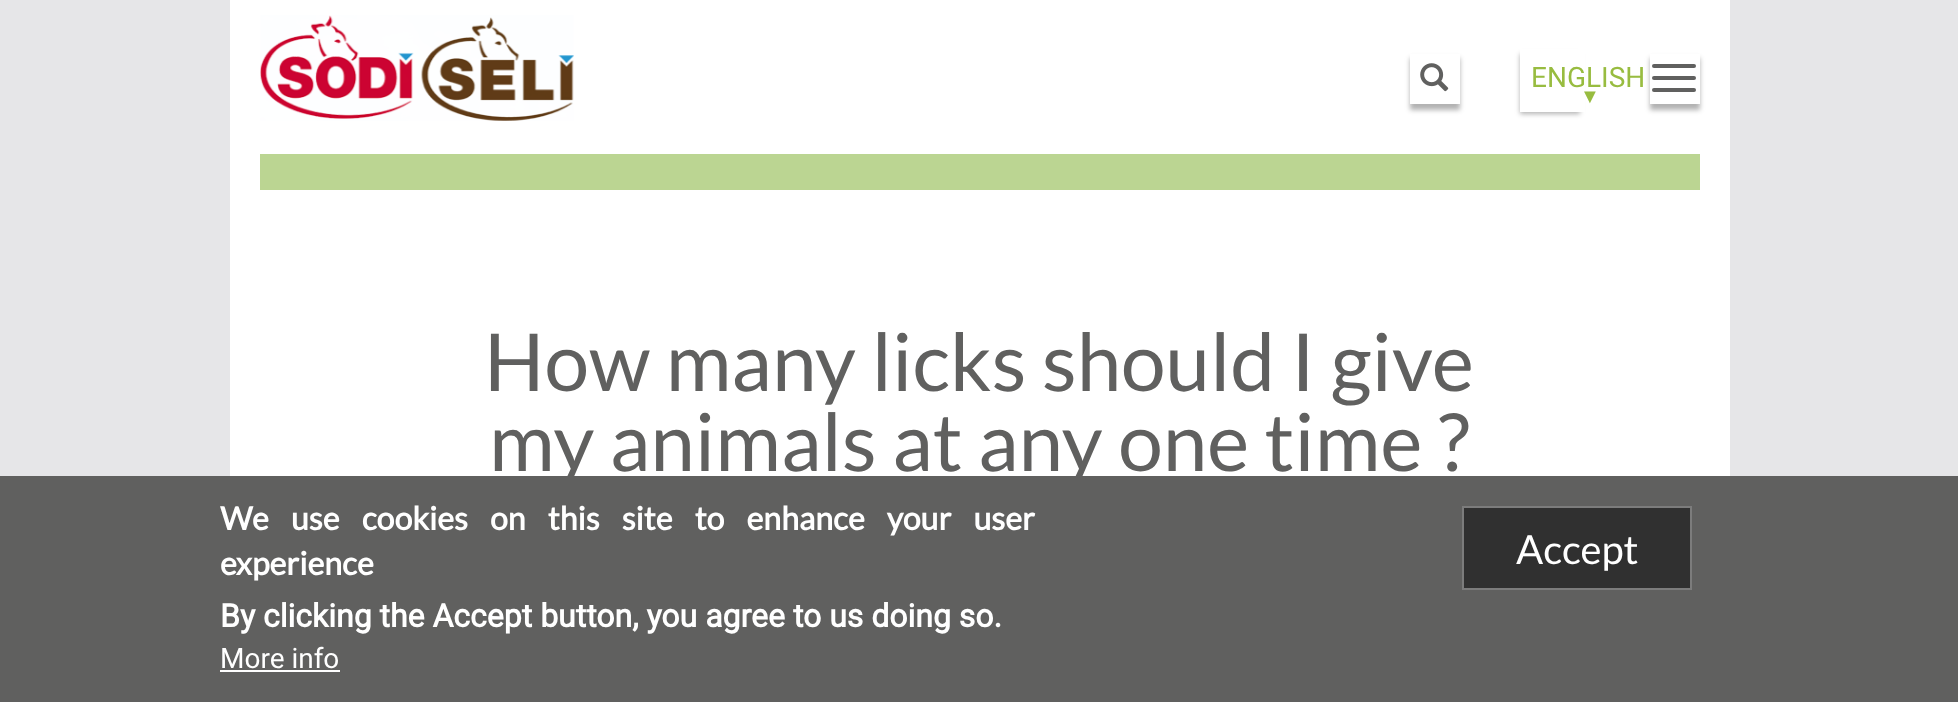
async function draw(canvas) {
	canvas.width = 1958;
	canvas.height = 702;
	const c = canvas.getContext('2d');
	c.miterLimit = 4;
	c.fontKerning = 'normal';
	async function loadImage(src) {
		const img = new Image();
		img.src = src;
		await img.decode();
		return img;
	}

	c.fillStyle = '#e6e6e8';
	c.fillRect(0, 0, 1958, 702);
	c.fillStyle = '#fff';
	c.fillRect(230, 0, 1500, 476);
	c.fillStyle = '#bbd592';
	c.fillRect(260, 154, 1440, 36);
	c.fillStyle = '#0000004d';
	c.filter = 'blur(2.5px)';
	c.beginPath();
	c.rect(1410, 58, 50, 52);
	c.fill();
	c.filter = 'none';
	c.fillStyle = '#fff';
	c.fillRect(1410, 54, 50, 50);
	c.drawImage(await loadImage('img1.png'), 1420, 63, 29, 29);
	c.drawImage(await loadImage('img2.png'), 260, 15, 314, 106);
	c.fillStyle = '#0000004d';
	c.filter = 'blur(2.5px)';
	c.beginPath();
	c.rect(1520, 54, 60, 60);
	c.fill();
	c.filter = 'none';
	c.fillStyle = '#fff';
	c.fillRect(1520, 49, 65, 63);
	c.font = '28px Roboto';
	c.fillStyle = '#98bc40';
	c.fillText('ENGLISH', 1531, 87);
	c.font = '20px Liberation Serif';
	c.fillText('▼', 1580, 103);
	c.fillStyle = '#0000004d';
	c.filter = 'blur(2.5px)';
	c.beginPath();
	c.rect(1650, 58, 50, 52);
	c.fill();
	c.filter = 'none';
	c.fillStyle = '#fff';
	c.fillRect(1650, 54, 50, 50);
	c.fillStyle = '#60605f';
	c.beginPath();
	c.roundRect(1652, 64, 44, 4, 2);
	c.fill();
	c.beginPath();
	c.roundRect(1652, 76, 44, 4, 2);
	c.fill();
	c.beginPath();
	c.roundRect(1652, 88, 44, 4, 2);
	c.fill();
	c.font = '80px Lato';
	c.fillText('How many licks should I give', 484, 391);
	c.fillText('my animals at any one time ?', 489, 471);
	c.fillRect(0, 476, 1958, 226);
	c.wordSpacing = '16px';
	c.font = 'bold 32px Lato';
	c.fillStyle = '#fff';
	c.fillText('We use cookies on this site to enhance your user', 220, 530);
	c.wordSpacing = '0px';
	c.fillText('experience', 220, 575);
	c.font = 'bold 32px Roboto';
	c.fillText('By clicking the Accept button, you agree to us doing so.', 220, 627);
	c.font = '28px Roboto';
	c.fillText('More info', 220, 668);
	c.fillRect(220, 670, 120, 2);
	c.fillStyle = '#303030';
	c.beginPath();
	c.rect(1463, 507, 228, 82);
	c.fill();
	c.strokeStyle = '#7c7c7c';
	c.lineWidth = 2;
	c.stroke();
	c.font = '40px Lato';
	c.fillStyle = '#fff';
	c.fillText('Accept', 1516, 564);
}

draw(document.querySelector('canvas'));
